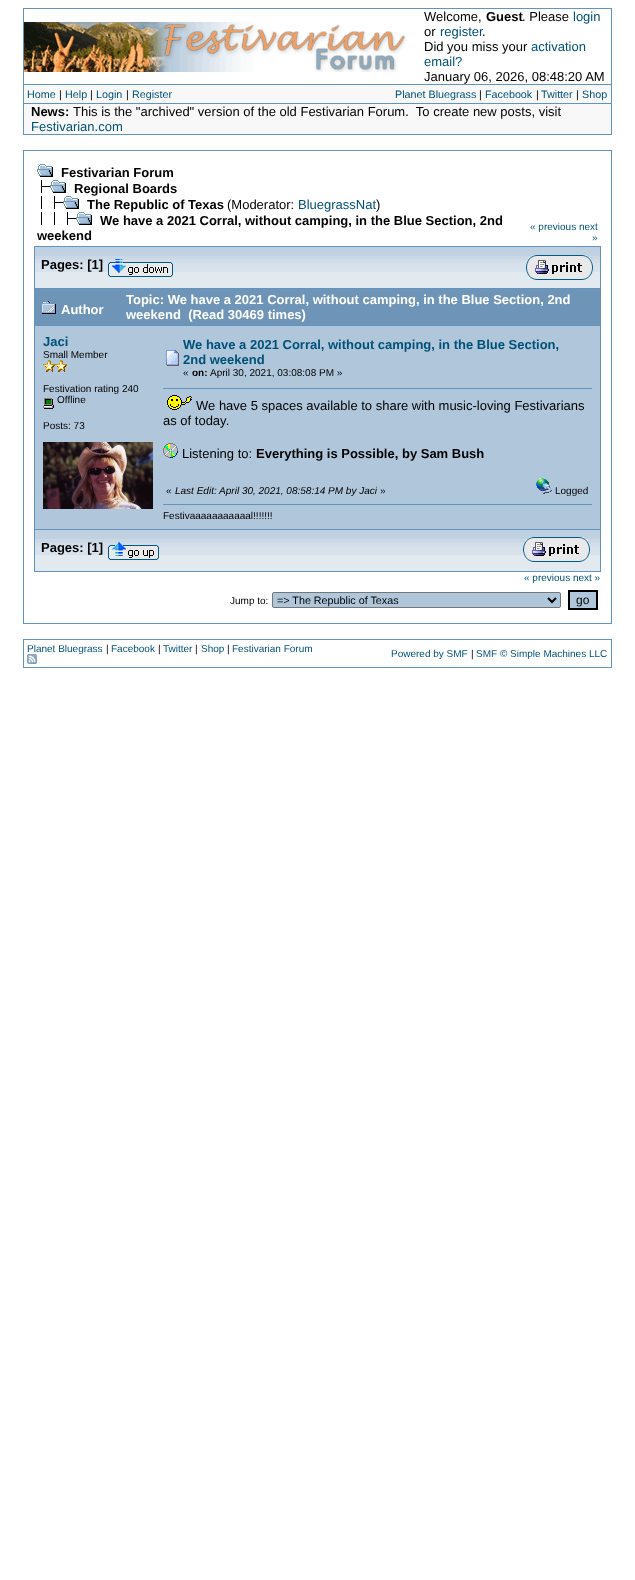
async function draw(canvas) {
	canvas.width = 635;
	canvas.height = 1580;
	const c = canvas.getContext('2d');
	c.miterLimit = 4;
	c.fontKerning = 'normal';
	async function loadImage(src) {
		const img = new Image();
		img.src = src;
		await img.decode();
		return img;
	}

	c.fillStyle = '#fff';
	c.fillRect(0, 0, 635, 1580);
	c.strokeStyle = '#6394bd';
	c.strokeRect(23.5, 8.5, 588, 126);
	c.drawImage(await loadImage('img1.png'), 24, 22, 383, 50);
	c.font = '13px Liberation Sans';
	c.fillStyle = '#000';
	c.fillText('Welcome,', 424, 21);
	c.font = 'bold 13px Liberation Sans';
	c.fillText('Guest', 486, 21);
	c.font = '13px Liberation Sans';
	c.fillText('. Please', 522, 21);
	c.fillStyle = '#005177';
	c.fillText('login', 573, 21);
	c.fillStyle = '#000';
	c.fillText('or', 424, 36);
	c.fillStyle = '#005177';
	c.fillText('register', 440, 36);
	c.fillStyle = '#000';
	c.fillText('.', 482, 36);
	c.fillText('Did you miss your', 424, 51);
	c.fillStyle = '#005177';
	c.fillText('activation', 531, 51);
	c.fillText('email?', 424, 66);
	c.fillStyle = '#000';
	c.fillText('January 06, 2026, 08:48:20 AM', 424, 81);
	c.fillStyle = '#f8f8f8';
	c.fillRect(24, 85, 587, 18);
	c.fillStyle = '#6394bd';
	c.fillRect(24, 84, 587, 1);
	c.font = '10.75px Liberation Sans';
	c.fillStyle = '#005177';
	c.fillText('Home', 27, 98);
	c.fillStyle = '#000';
	c.fillText('|', 59, 98);
	c.fillStyle = '#005177';
	c.fillText('Help', 65, 98);
	c.fillStyle = '#000';
	c.fillText('|', 90, 98);
	c.fillStyle = '#005177';
	c.fillText('Login', 96, 98);
	c.fillStyle = '#000';
	c.fillText('|', 126, 98);
	c.fillStyle = '#005177';
	c.fillText('Register', 132, 98);
	c.fillText('Planet Bluegrass', 395, 98);
	c.fillStyle = '#000';
	c.fillText('|', 479, 98);
	c.fillStyle = '#005177';
	c.fillText('Facebook', 485, 98);
	c.fillStyle = '#000';
	c.fillText('|', 536, 98);
	c.fillStyle = '#005177';
	c.fillText('Twitter', 541, 98);
	c.fillStyle = '#000';
	c.fillText('|', 576, 98);
	c.fillStyle = '#005177';
	c.fillText('Shop', 582, 98);
	c.fillStyle = '#f8f8f8';
	c.fillRect(24, 104, 587, 30);
	c.fillStyle = '#6394bd';
	c.fillRect(24, 103, 587, 1);
	c.font = 'bold 13px Liberation Sans';
	c.fillStyle = '#000';
	c.fillText('News:', 31, 116);
	c.font = '13px Liberation Sans';
	c.fillText('This is the "archived" version of the old Festivarian Forum.  To create new posts, visit', 73, 116);
	c.fillStyle = '#005177';
	c.fillText('Festivarian.com', 31, 131);
	c.strokeRect(23.5, 150.5, 588, 473);
	c.drawImage(await loadImage('img2.png'), 37, 164, 16, 13);
	c.font = 'bold 13px Liberation Sans';
	c.fillStyle = '#000';
	c.fillText('Festivarian Forum', 61, 177);
	c.drawImage(await loadImage('img3.png'), 41, 180, 9, 13);
	c.drawImage(await loadImage('img2.png'), 50, 180, 16, 13);
	c.fillText('Regional Boards', 74, 193);
	c.drawImage(await loadImage('img3.png'), 54, 196, 9, 13);
	c.drawImage(await loadImage('img2.png'), 63, 196, 16, 13);
	c.fillText('The Republic of Texas', 87, 209);
	c.fillRect(41, 196, 1, 13);
	c.font = '13px Liberation Sans';
	c.fillText('(Moderator:', 227, 209);
	c.fillStyle = '#005177';
	c.fillText('BluegrassNat', 298, 209);
	c.fillStyle = '#000';
	c.fillText(')', 376, 209);
	c.drawImage(await loadImage('img3.png'), 67, 212, 9, 13);
	c.drawImage(await loadImage('img2.png'), 76, 212, 16, 13);
	c.font = 'bold 13px Liberation Sans';
	c.fillText('We have a 2021 Corral, without camping, in the Blue Section, 2nd', 100, 225);
	c.fillText('weekend', 37, 240);
	c.fillRect(41, 212, 1, 13);
	c.fillRect(54, 212, 1, 13);
	c.font = '10px Liberation Sans';
	c.fillStyle = '#005177';
	c.fillText('« previous next', 530, 230);
	c.fillText('»', 592, 241);
	for (const [x, y, w, h, color] of [
		[34, 246, 567, 1, '#6394bd'],
		[600, 246, 1, 42, '#6394bd'],
		[34, 246, 1, 42, '#6394bd'],
	]) {
		c.fillStyle = color;
		c.fillRect(x, y, w, h);
	}
	c.drawImage(await loadImage('img4.png'), 35, 247, 565, 41);
	c.font = 'bold 13px Liberation Sans';
	c.fillStyle = '#000';
	c.fillText('Pages: [1]', 41, 269);
	c.drawImage(await loadImage('img5.png'), 108, 259, 65, 18);
	c.drawImage(await loadImage('img6.png'), 526, 255, 67, 25);
	for (const [x, y, w, h, color] of [
		[34, 288, 567, 1, '#6394bd'],
		[600, 288, 1, 37, '#6394bd'],
		[34, 288, 1, 37, '#6394bd'],
		[35, 289, 565, 36, '#6e94b7'],
	]) {
		c.fillStyle = color;
		c.fillRect(x, y, w, h);
	}
	c.drawImage(await loadImage('img7.png'), 42, 301, 14, 13);
	c.fillStyle = '#fff';
	for (const [text, x, y] of [
		['Author', 61, 314],
		['Topic: We have a 2021 Corral, without camping, in the Blue Section, 2nd', 126, 304],
		['weekend  (Read 30469 times)', 126, 319],
	]) {
		c.fillText(text, x, y);
	}
	c.fillStyle = '#6394bd';
	c.fillRect(34, 325, 567, 247);
	c.fillStyle = '#afc6db';
	c.fillRect(35, 326, 565, 203);
	c.fillStyle = '#005177';
	c.fillText('Jaci', 43, 346);
	c.font = '10px Liberation Sans';
	c.fillStyle = '#000';
	c.fillText('Small Member', 43, 358);
	c.drawImage(await loadImage('img8.png'), 43, 360, 12, 12);
	c.drawImage(await loadImage('img8.png'), 55, 360, 12, 12);
	c.fillText('Festivation rating 240', 43, 392);
	c.drawImage(await loadImage('img9.png'), 43, 398, 11, 11);
	c.fillText('Offline', 57, 403);
	c.fillText('Posts: 73', 43, 429);
	c.drawImage(await loadImage('img10.png'), 43, 442, 110, 67);
	c.drawImage(await loadImage('img11.png'), 166, 350, 13, 16);
	c.font = 'bold 13px Liberation Sans';
	c.fillStyle = '#005177';
	c.fillText('We have a 2021 Corral, without camping, in the Blue Section,', 183, 349);
	c.fillText('2nd weekend', 183, 364);
	c.font = '10px Liberation Sans';
	c.fillStyle = '#000';
	c.fillText('«', 183, 376);
	c.font = 'bold 10px Liberation Sans';
	c.fillText('on:', 192, 376);
	c.font = '10px Liberation Sans';
	c.fillText('April 30, 2021, 03:08:08 PM »', 210, 376);
	c.fillStyle = '#6394bd';
	c.fillRect(163, 388, 429, 1);
	c.drawImage(await loadImage('img12.png'), 167, 395, 25, 15);
	c.font = '13px Liberation Sans';
	c.fillStyle = '#000';
	c.fillText('We have 5 spaces available to share with music-loving Festivarians', 196, 410);
	c.fillText('as of today.', 163, 425);
	c.drawImage(await loadImage('img13.png'), 163, 443, 15, 15);
	c.fillText('Listening to:', 182, 458);
	c.font = 'bold 13px Liberation Sans';
	c.fillText('Everything is Possible, by Sam Bush', 256, 458);
	c.font = '10px Liberation Sans';
	c.fillText('«', 166, 494);
	c.font = 'italic 10px Liberation Sans';
	c.fillText('Last Edit: April 30, 2021, 08:58:14 PM by Jaci', 175, 494);
	c.font = '10px Liberation Sans';
	c.fillText('»', 380, 494);
	c.drawImage(await loadImage('img14.png'), 536, 478, 16, 16);
	c.fillText('Logged', 555, 494);
	c.fillStyle = '#6394bd';
	c.fillRect(163, 504, 429, 1);
	c.fillStyle = '#000';
	c.fillText('Festivaaaaaaaaaaal!!!!!!!', 163, 519);
	c.drawImage(await loadImage('img4.png'), 35, 530, 565, 41);
	c.font = 'bold 13px Liberation Sans';
	c.fillText('Pages: [1]', 41, 552);
	c.drawImage(await loadImage('img15.png'), 108, 542, 51, 18);
	c.drawImage(await loadImage('img16.png'), 523, 537, 67, 25);
	c.font = '10px Liberation Sans';
	c.fillStyle = '#005177';
	c.fillText('« previous next »', 524, 581);
	c.fillStyle = '#000';
	c.fillText('Jump to:', 230, 604);
	c.fillStyle = '#afc6db';
	c.beginPath();
	c.roundRect(272.5, 592.5, 288, 15, 1.5);
	c.fill();
	c.strokeStyle = '#767676';
	c.stroke();
	c.beginPath();
	c.moveTo(548, 598);
	c.lineTo(552, 602);
	c.lineTo(556, 598);
	c.strokeStyle = '#000';
	c.lineWidth = 2;
	c.stroke();
	c.font = '10.75px Liberation Sans';
	c.fillStyle = '#000';
	c.fillText('=> The Republic of Texas', 277, 604);
	c.fillStyle = '#afc6db';
	c.beginPath();
	c.rect(569, 591, 28, 18);
	c.fill();
	c.stroke();
	c.font = '12px Liberation Sans';
	c.fillStyle = '#000';
	c.fillText('go', 576, 604);
	c.strokeStyle = '#6394bd';
	c.lineWidth = 1;
	c.strokeRect(23.5, 639.5, 588, 28);
	c.font = '10px Liberation Sans';
	c.fillStyle = '#005177';
	c.fillText('Planet Bluegrass', 27, 652);
	c.fillStyle = '#000';
	c.fillText('|', 106, 652);
	c.fillStyle = '#005177';
	c.fillText('Facebook', 111, 652);
	c.fillStyle = '#000';
	c.fillText('|', 158, 652);
	c.fillStyle = '#005177';
	c.fillText('Twitter', 163, 652);
	c.fillStyle = '#000';
	c.fillText('|', 195, 652);
	c.fillStyle = '#005177';
	c.fillText('Shop', 201, 652);
	c.fillStyle = '#000';
	c.fillText('|', 227, 652);
	c.fillStyle = '#005177';
	c.fillText('Festivarian Forum', 232, 652);
	c.drawImage(await loadImage('img17.png'), 27, 654, 10, 10);
	c.fillText('Powered by SMF', 391, 657);
	c.fillStyle = '#000';
	c.fillText('|', 471, 657);
	c.fillStyle = '#005177';
	c.fillText('SMF © Simple Machines LLC', 476, 657);
}

draw(document.querySelector('canvas'));
